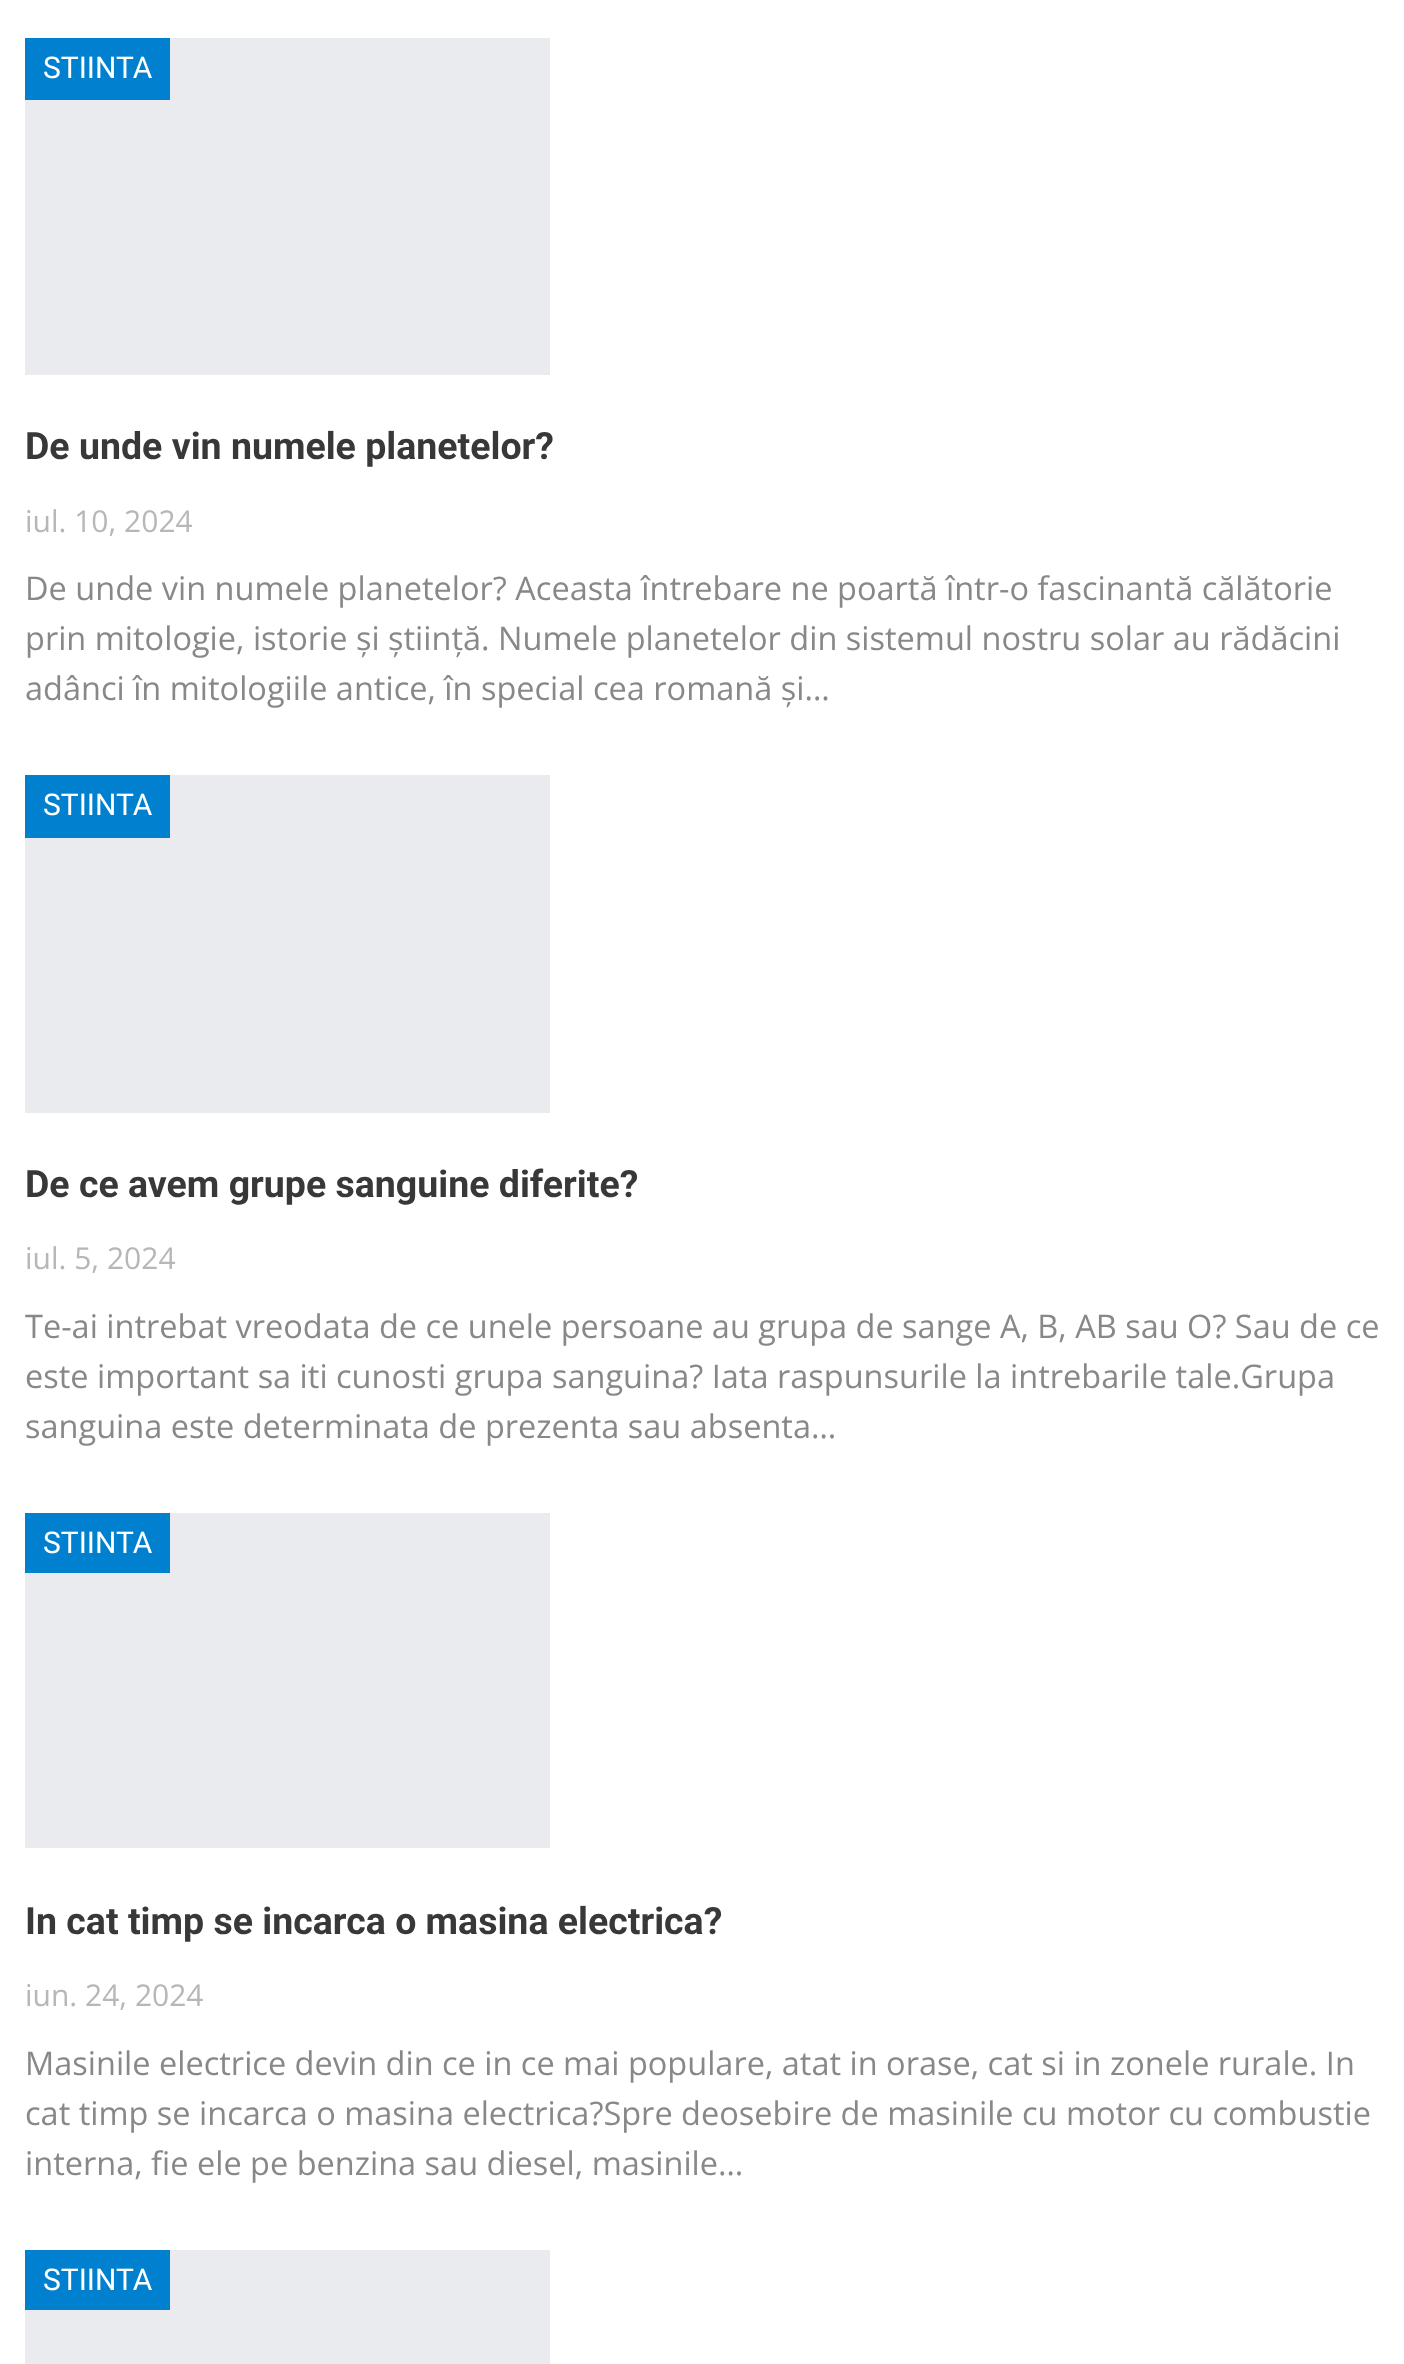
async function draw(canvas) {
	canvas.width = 1404;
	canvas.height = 2364;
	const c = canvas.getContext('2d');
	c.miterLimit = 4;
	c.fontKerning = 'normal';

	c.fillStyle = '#fff';
	c.fillRect(0, 0, 1404, 2364);
	c.fillStyle = '#e9ebee';
	c.fillRect(25, 38, 525, 337);
	c.fillStyle = '#0080ce';
	c.fillRect(25, 38, 145, 62);
	c.font = '30px Roboto';
	c.fillStyle = '#fff';
	c.fillText('STIINTA', 43, 78);
	c.font = 'bold 37.5px Roboto';
	c.fillStyle = '#383838';
	c.fillText('De unde vin numele planetelor?', 25, 459);
	c.font = '30px Open Sans';
	c.fillStyle = '#b7b7b7';
	c.fillText('iul. 10, 2024', 25, 532);
	c.font = '32.5px Open Sans';
	c.fillStyle = '#888';
	for (const [text, x, y] of [
		['De unde vin numele planetelor? Aceasta întrebare ne poartă într-o fascinantă călătorie', 25, 600],
		['prin mitologie, istorie și știință. Numele planetelor din sistemul nostru solar au rădăcini', 25, 650],
		['adânci în mitologiile antice, în special cea romană și…', 25, 700],
	]) {
		c.fillText(text, x, y);
	}
	c.fillStyle = '#e9ebee';
	c.fillRect(25, 775, 525, 338);
	c.fillStyle = '#0080ce';
	c.fillRect(25, 775, 145, 63);
	c.font = '30px Roboto';
	c.fillStyle = '#fff';
	c.fillText('STIINTA', 43, 815);
	c.font = 'bold 37.5px Roboto';
	c.fillStyle = '#383838';
	c.fillText('De ce avem grupe sanguine diferite?', 25, 1197);
	c.font = '30px Open Sans';
	c.fillStyle = '#b7b7b7';
	c.fillText('iul. 5, 2024', 25, 1269);
	c.font = '32.5px Open Sans';
	c.fillStyle = '#888';
	for (const [text, x, y] of [
		['Te-ai intrebat vreodata de ce unele persoane au grupa de sange A, B, AB sau O? Sau de ce', 25, 1338],
		['este important sa iti cunosti grupa sanguina? Iata raspunsurile la intrebarile tale.Grupa', 25, 1388],
		['sanguina este determinata de prezenta sau absenta…', 25, 1438],
	]) {
		c.fillText(text, x, y);
	}
	c.fillStyle = '#e9ebee';
	c.fillRect(25, 1513, 525, 335);
	c.fillStyle = '#0080ce';
	c.fillRect(25, 1513, 145, 60);
	c.font = '30px Roboto';
	c.fillStyle = '#fff';
	c.fillText('STIINTA', 43, 1553);
	c.font = 'bold 37.5px Roboto';
	c.fillStyle = '#383838';
	c.fillText('In cat timp se incarca o masina electrica?', 25, 1934);
	c.font = '30px Open Sans';
	c.fillStyle = '#b7b7b7';
	c.fillText('iun. 24, 2024', 25, 2006);
	c.font = '32.5px Open Sans';
	c.fillStyle = '#888';
	for (const [text, x, y] of [
		['Masinile electrice devin din ce in ce mai populare, atat in orase, cat si in zonele rurale. In', 25, 2075],
		['cat timp se incarca o masina electrica?Spre deosebire de masinile cu motor cu combustie', 25, 2125],
		['interna, fie ele pe benzina sau diesel, masinile…', 25, 2175],
	]) {
		c.fillText(text, x, y);
	}
	c.fillStyle = '#e9ebee';
	c.fillRect(25, 2250, 525, 114);
	c.fillStyle = '#0080ce';
	c.fillRect(25, 2250, 145, 60);
	c.font = '30px Roboto';
	c.fillStyle = '#fff';
	c.fillText('STIINTA', 43, 2290);
}

draw(document.querySelector('canvas'));
